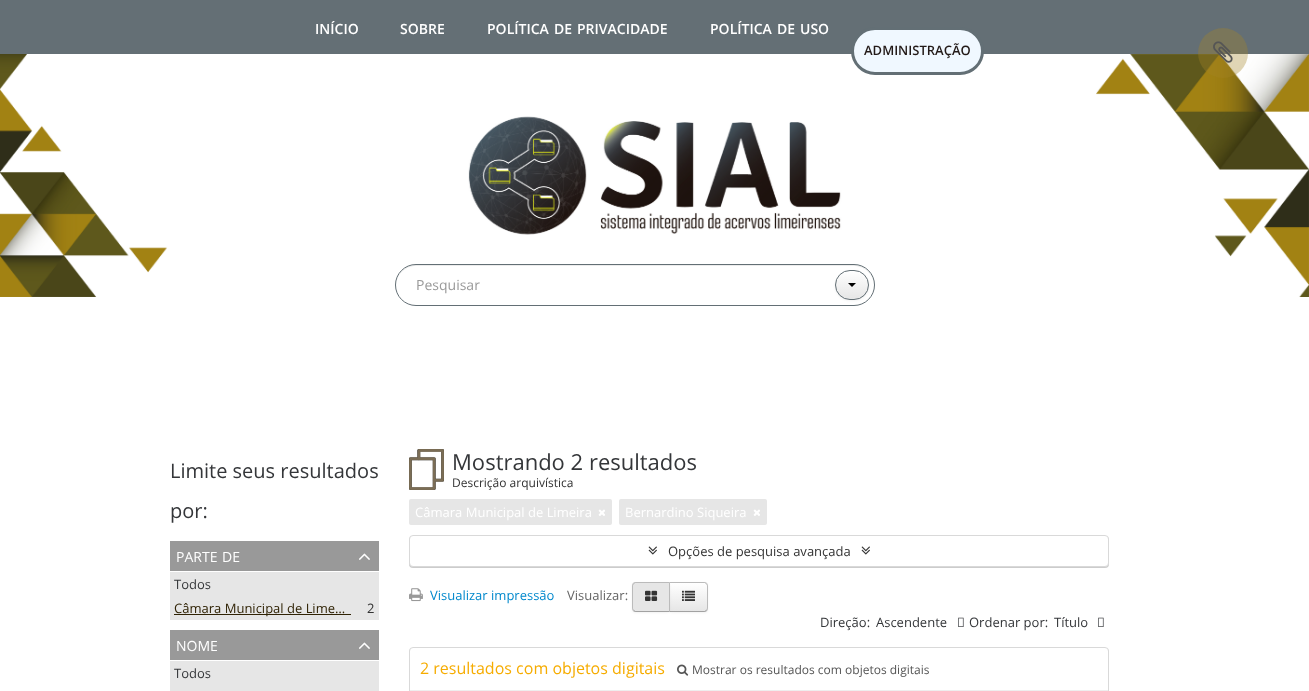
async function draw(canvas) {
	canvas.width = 1309;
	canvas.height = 691;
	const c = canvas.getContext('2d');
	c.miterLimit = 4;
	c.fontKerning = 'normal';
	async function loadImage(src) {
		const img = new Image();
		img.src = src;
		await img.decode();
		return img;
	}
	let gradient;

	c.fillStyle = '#fff';
	c.fillRect(0, 0, 1309, 691);
	c.fillStyle = '#646f75';
	c.fillRect(0, 0, 1309, 54);
	c.font = '600 14px Open Sans';
	c.fillStyle = '#fff';
	for (const [text, x, y] of [
		['INÍCIO', 315, 34],
		['SOBRE', 400, 34],
		['POLÍTICA', 487, 34],
		['DE', 554, 34],
		['PRIVACIDADE', 577, 34],
		['POLÍTICA', 710, 34],
		['DE', 777, 34],
		['USO', 800, 34],
	]) {
		c.fillText(text, x, y);
	}
	c.drawImage(await loadImage('img2.png'), 0, 54, 1309, 243);
	c.fillStyle = '#f0f8ff';
	c.beginPath();
	c.roundRect(852.5, 28.5, 130, 45, 22.5);
	c.fill();
	c.strokeStyle = '#636f75';
	c.lineWidth = 3;
	c.stroke();
	c.font = '600 13px Open Sans';
	c.fillStyle = '#231a18';
	c.fillText('ADMINISTRAÇÃO', 864, 55);
	c.fillStyle = '#a4832657';
	c.beginPath();
	c.arc(1223, 53, 25, 0, 2 * Math.PI);
	c.fill();
	c.drawImage(await loadImage('img1.png'), 1213, 41, 20, 22);
	c.fillStyle = '#ececec';
	c.beginPath();
	c.moveTo(416, 266);
	c.lineTo(854, 266);
	c.bezierCurveTo(865, 266, 874, 275, 874, 286);
	c.bezierCurveTo(874, 274, 865, 265, 854, 265);
	c.lineTo(416, 265);
	c.bezierCurveTo(405, 265, 396, 274, 396, 286);
	c.bezierCurveTo(396, 275, 405, 266, 416, 266);
	c.closePath();
	c.fill();
	c.beginPath();
	c.roundRect(395.5, 264.5, 479, 41, 20.5);
	c.lineWidth = 1;
	c.stroke();
	c.font = '14px Open Sans';
	c.fillStyle = '#999';
	c.fillText('Pesquisar', 416, 290);
	c.fillStyle = '#0000000d';
	c.filter = 'blur(1px)';
	c.beginPath();
	c.roundRect(835, 271, 34, 30, 15);
	c.fill();
	c.filter = 'none';
	c.save();
	c.beginPath();
	c.roundRect(835, 270, 34, 30, 15);
	c.clip();
	gradient = c.createLinearGradient(852, 271, 852, 299);
	gradient.addColorStop(0, '#fff');
	gradient.addColorStop(1, '#e6e6e6');
	c.fillStyle = gradient;
	c.fillRect(835, 271, 34, 28);
	c.restore();
	c.beginPath();
	c.roundRect(835.5, 270.5, 33, 29, 14.5);
	c.stroke();
	c.fillStyle = '#000';
	c.beginPath();
	c.moveTo(848, 283);
	c.lineTo(856, 283);
	c.lineTo(852, 287);
	c.closePath();
	c.fill();
	c.font = '20px Open Sans';
	c.fillStyle = '#343639';
	c.fillText('Limite seus resultados', 170, 478);
	c.fillText('por:', 170, 518);
	c.fillStyle = '#999';
	c.fillRect(170, 541, 209, 30);
	c.font = '14px Open Sans';
	c.fillStyle = '#fff';
	c.fillText('PARTE', 176, 562);
	c.fillText('DE', 222, 562);
	c.drawImage(await loadImage('img3.png'), 359, 553, 11, 7);
	c.fillStyle = '#e6e6e6';
	c.fillRect(170, 572, 209, 48);
	c.font = '13px Open Sans';
	c.fillStyle = '#343639';
	c.fillText('Todos', 174, 589);
	c.fillStyle = '#302305';
	c.fillRect(174, 614, 177, 1);
	c.fillText('Câmara Municipal de Lime…', 174, 613);
	c.fillStyle = '#333';
	c.fillText('2', 367, 613);
	c.fillStyle = '#999';
	c.fillRect(170, 630, 209, 30);
	c.font = '14px Open Sans';
	c.fillStyle = '#fff';
	c.fillText('NOME', 176, 651);
	c.drawImage(await loadImage('img3.png'), 359, 642, 11, 7);
	c.fillStyle = '#e6e6e6';
	c.fillRect(170, 661, 209, 30);
	c.font = '13px Open Sans';
	c.fillStyle = '#343639';
	c.fillText('Todos', 174, 678);
	c.drawImage(await loadImage('img4.png'), 409, 449, 35, 41);
	c.font = '22px Open Sans';
	c.fillText('Mostrando 2 resultados', 452, 470);
	c.font = '12px Open Sans';
	c.fillStyle = '#333';
	c.fillText('Descrição arquivística', 452, 487);
	c.fillStyle = '#e6e6e6';
	c.beginPath();
	c.roundRect(409, 499, 203, 26, 2);
	c.fill();
	c.font = '13px Open Sans';
	c.fillStyle = '#fff';
	c.fillText('Câmara Municipal de Limeira', 415, 517);
	c.drawImage(await loadImage('img5.png'), 598, 509, 7, 7);
	c.fillStyle = '#e6e6e6';
	c.beginPath();
	c.roundRect(619, 499, 148, 26, 2);
	c.fill();
	c.fillStyle = '#fff';
	c.fillText('Bernardino Siqueira', 625, 517);
	c.drawImage(await loadImage('img5.png'), 753, 509, 7, 7);
	c.fillStyle = '#00000033';
	c.filter = 'blur(0.5px)';
	c.beginPath();
	c.roundRect(409, 536, 700, 32, 4);
	c.fill();
	c.filter = 'none';
	c.fillStyle = '#fff';
	c.beginPath();
	c.roundRect(409.5, 535.5, 699, 31, 3.5);
	c.fill();
	c.strokeStyle = '#d9d9d9';
	c.stroke();
	c.drawImage(await loadImage('img6.png'), 648, 546, 9, 9);
	c.fillStyle = '#333';
	c.fillText('Opções de pesquisa avançada', 668, 556);
	c.drawImage(await loadImage('img6.png'), 861, 546, 9, 9);
	c.drawImage(await loadImage('img7.png'), 409, 588, 14, 14);
	c.fillStyle = '#08c';
	c.fillText('Visualizar impressão', 430, 600);
	c.fillStyle = '#666';
	c.fillText('Visualizar:', 567, 600);
	c.fillStyle = '#0000000d';
	c.filter = 'blur(1px)';
	c.beginPath();
	c.roundRect(669, 583, 39, 30, 4);
	c.fill();
	c.filter = 'none';
	c.save();
	c.beginPath();
	c.roundRect(669, 582, 39, 30, [0, 4, 4, 0]);
	c.clip();
	gradient = c.createLinearGradient(689, 583, 689, 611);
	gradient.addColorStop(0, '#fff');
	gradient.addColorStop(1, '#e6e6e6');
	c.fillStyle = gradient;
	c.fillRect(670, 583, 38, 28);
	c.restore();
	c.fillStyle = '#bbb';
	c.beginPath();
	c.moveTo(669, 582);
	c.lineTo(670, 583);
	c.lineTo(704, 583);
	c.bezierCurveTo(705, 583, 705.5, 583.5, 706, 584);
	c.lineTo(707, 583);
	c.bezierCurveTo(706, 582.5, 705, 582, 704, 582);
	c.closePath();
	c.fill();
	c.beginPath();
	c.moveTo(708, 608);
	c.lineTo(708, 586);
	c.bezierCurveTo(708, 585, 707.5, 584, 707, 583);
	c.lineTo(706, 584);
	c.bezierCurveTo(706.5, 584.5, 707, 585, 707, 586);
	c.lineTo(707, 608);
	c.bezierCurveTo(707, 609, 706.5, 609.5, 706, 610);
	c.lineTo(707, 611);
	c.bezierCurveTo(707.5, 610, 708, 609, 708, 608);
	c.closePath();
	c.fill();
	c.fillStyle = '#a2a2a2';
	c.beginPath();
	c.moveTo(704, 612);
	c.bezierCurveTo(705, 612, 706, 611.5, 707, 611);
	c.lineTo(706, 610);
	c.bezierCurveTo(705.5, 610.5, 705, 611, 704, 611);
	c.lineTo(670, 611);
	c.lineTo(669, 612);
	c.closePath();
	c.fill();
	c.fillStyle = '#0000000d';
	c.filter = 'blur(1px)';
	c.beginPath();
	c.roundRect(632, 583, 38, 30, 4);
	c.fill();
	c.filter = 'none';
	c.fillStyle = '#e6e6e6';
	c.beginPath();
	c.roundRect(632, 582, 38, 30, [4, 0, 0, 4]);
	c.fill();
	c.fillStyle = '#bbb';
	c.beginPath();
	c.moveTo(636, 582);
	c.bezierCurveTo(635, 582, 634, 582.5, 633, 583);
	c.lineTo(634, 584);
	c.bezierCurveTo(634.5, 583.5, 635, 583, 636, 583);
	c.lineTo(669, 583);
	c.lineTo(670, 582);
	c.closePath();
	c.fill();
	c.beginPath();
	c.moveTo(670, 582);
	c.lineTo(669, 583);
	c.lineTo(669, 611);
	c.lineTo(670, 612);
	c.closePath();
	c.fill();
	c.fillStyle = '#a2a2a2';
	c.beginPath();
	c.moveTo(670, 612);
	c.lineTo(669, 611);
	c.lineTo(636, 611);
	c.bezierCurveTo(635, 611, 634.5, 610.5, 634, 610);
	c.lineTo(633, 611);
	c.bezierCurveTo(634, 611.5, 635, 612, 636, 612);
	c.closePath();
	c.fill();
	c.fillStyle = '#bbb';
	c.beginPath();
	c.moveTo(632, 586);
	c.lineTo(632, 608);
	c.bezierCurveTo(632, 609, 632.5, 610, 633, 611);
	c.lineTo(634, 610);
	c.bezierCurveTo(633.5, 609.5, 633, 609, 633, 608);
	c.lineTo(633, 586);
	c.bezierCurveTo(633, 585, 633.5, 584.5, 634, 584);
	c.lineTo(633, 583);
	c.bezierCurveTo(632.5, 584, 632, 585, 632, 586);
	c.closePath();
	c.fill();
	c.drawImage(await loadImage('img8.png'), 645, 590, 13, 11);
	c.drawImage(await loadImage('img9.png'), 682, 590, 13, 11);
	c.fillStyle = '#343639';
	c.fillText('Direção:', 820, 627);
	c.fillText('Ascendente', 876, 627);
	c.drawImage(await loadImage('img10.png'), 958, 617, 6, 10);
	c.fillText('Ordenar por:', 969, 627);
	c.fillText('Título', 1054, 627);
	c.drawImage(await loadImage('img10.png'), 1098, 617, 6, 10);
	c.fillStyle = '#00000033';
	c.filter = 'blur(0.5px)';
	c.beginPath();
	c.roundRect(409, 648, 700, 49, 4);
	c.fill();
	c.filter = 'none';
	c.fillStyle = '#fff';
	c.beginPath();
	c.roundRect(409.5, 647.5, 699, 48, 3.5);
	c.fill();
	c.stroke();
	c.fillStyle = '#eee';
	c.fillRect(410, 690, 698, 1);
	c.font = '16px Open Sans';
	c.fillStyle = '#f6ac00';
	c.fillText('2 resultados com objetos digitais', 420, 674);
	c.drawImage(await loadImage('img11.png'), 677, 664, 12, 12);
	c.font = '12px Open Sans';
	c.fillStyle = '#555';
	c.fillText('Mostrar os resultados com objetos digitais', 692, 674);
}

draw(document.querySelector('canvas'));
